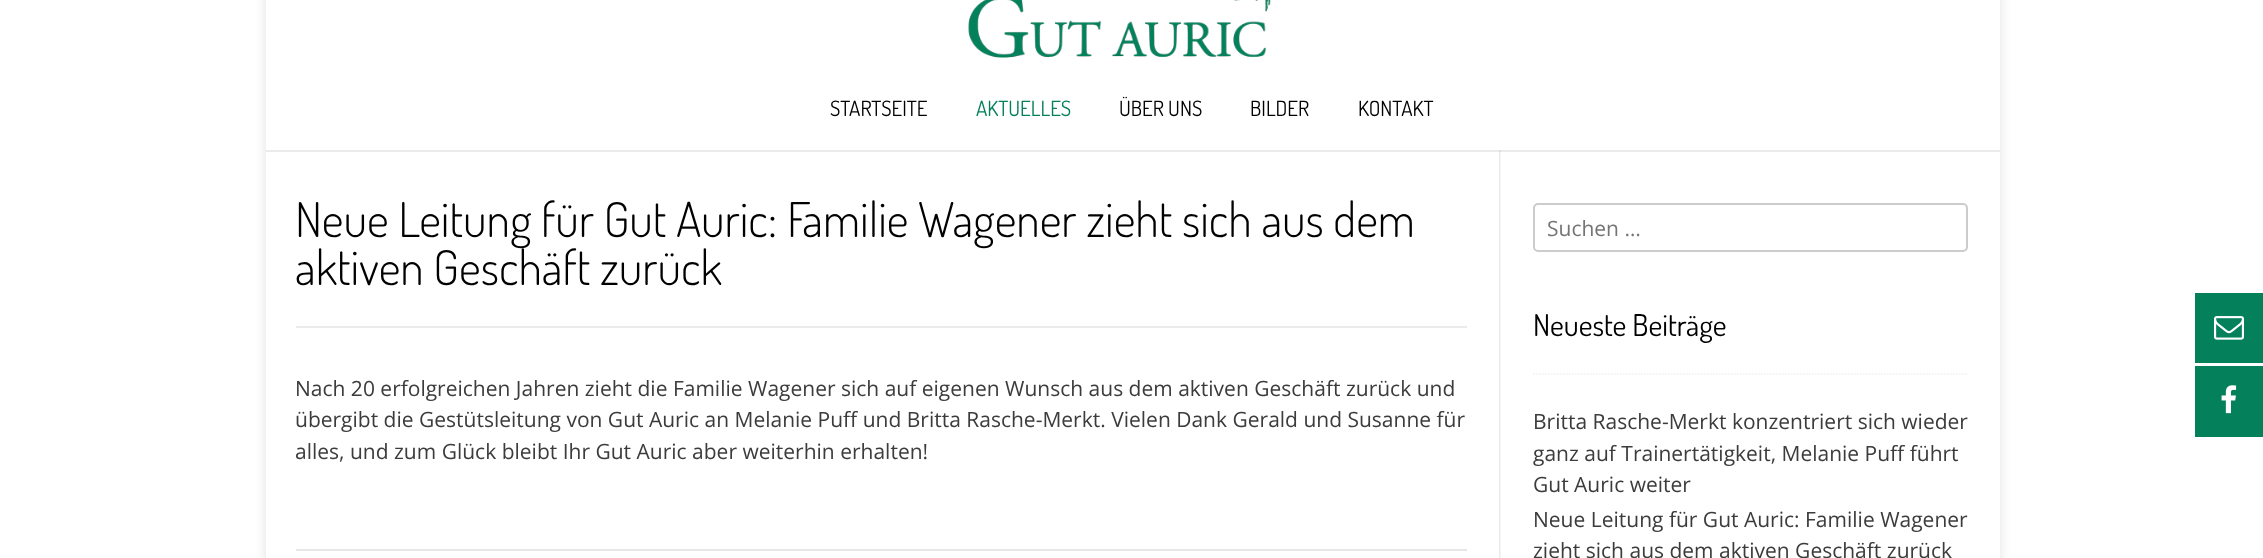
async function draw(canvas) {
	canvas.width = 2263;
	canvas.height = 558;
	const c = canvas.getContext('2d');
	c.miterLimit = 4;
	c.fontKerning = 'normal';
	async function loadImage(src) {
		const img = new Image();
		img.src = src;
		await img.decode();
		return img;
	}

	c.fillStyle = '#fff';
	c.fillRect(0, 0, 2263, 558);
	c.fillStyle = '#0000001f';
	c.filter = 'blur(6px)';
	c.beginPath();
	c.rect(266, -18, 1734, 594);
	c.fill();
	c.filter = 'none';
	c.fillStyle = '#fff';
	c.fillRect(266, 0, 1734, 558);
	c.fillStyle = '#f5f5f5';
	c.beginPath();
	c.moveTo(1499, 150);
	c.lineTo(1499, 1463);
	c.lineTo(1967, 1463);
	c.lineTo(1967, 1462);
	c.lineTo(1500, 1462);
	c.lineTo(1500, 150);
	c.closePath();
	c.fill();
	c.fillStyle = '#00000014';
	c.beginPath();
	c.moveTo(266, 150);
	c.lineTo(266, 152);
	c.lineTo(2000, 152);
	c.lineTo(2000, -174);
	c.lineTo(2000, 150);
	c.closePath();
	c.fill();
	c.drawImage(await loadImage('img1.png'), 968, 0, 303, 58);
	c.font = '21px Dosis';
	c.fillStyle = '#000';
	c.fillText('STARTSEITE', 830, 116);
	c.fillStyle = '#04805b';
	c.fillText('AKTUELLES', 976, 116);
	c.fillStyle = '#000';
	for (const [text, x, y] of [
		['ÜBER UNS', 1119, 116],
		['BILDER', 1250, 116],
		['KONTAKT', 1358, 116],
	]) {
		c.fillText(text, x, y);
	}
	for (const [x, y, w, h, color] of [
		[1499, 150, 2, 408, '#0000000a'],
		[296, 549, 1171, 2, '#e6e6e6'],
		[296, 326, 1171, 2, '#ebebeb'],
	]) {
		c.fillStyle = color;
		c.fillRect(x, y, w, h);
	}
	c.font = '300 48px Dosis';
	c.fillStyle = '#000';
	c.fillText('Neue Leitung für Gut Auric: Familie Wagener zieht sich aus dem', 295, 237);
	c.fillText('aktiven Geschäft zurück', 295, 285);
	c.font = '21px Open Sans';
	c.fillStyle = '#3c3c3c';
	for (const [text, x, y] of [
		['Nach 20 erfolgreichen Jahren zieht die Familie Wagener sich auf eigenen Wunsch aus dem aktiven Geschäft zurück und', 295, 396],
		['übergibt die Gestütsleitung von Gut Auric an Melanie Puff und Britta Rasche-Merkt. Vielen Dank Gerald und Susanne für', 295, 427],
		['alles, und zum Glück bleibt Ihr Gut Auric aber weiterhin erhalten!', 295, 459],
	]) {
		c.fillText(text, x, y);
	}
	c.beginPath();
	c.roundRect(1534, 204, 433, 47, 4);
	c.strokeStyle = '#ccc';
	c.lineWidth = 2;
	c.stroke();
	c.fillStyle = '#757575';
	c.fillText('Suchen …', 1547, 236);
	c.beginPath();
	c.moveTo(1533, 374);
	c.lineTo(1968, 374);
	c.strokeStyle = '#efefef';
	c.lineWidth = 1.5;
	c.setLineDash([1.5, 1.5]);
	c.stroke();
	c.font = '30px Dosis';
	c.fillStyle = '#000';
	c.fillText('Neueste Beiträge', 1533, 336);
	c.font = '21px Open Sans';
	c.fillStyle = '#3c3c3c';
	for (const [text, x, y] of [
		['Britta Rasche-Merkt konzentriert sich wieder', 1533, 429],
		['ganz auf Trainertätigkeit, Melanie Puff führt', 1533, 461],
		['Gut Auric weiter', 1533, 492],
		['Neue Leitung für Gut Auric: Familie Wagener', 1533, 527],
		['zieht sich aus dem aktiven Geschäft zurück', 1533, 558],
	]) {
		c.fillText(text, x, y);
	}
	c.fillStyle = '#04805b';
	c.fillRect(2195, 293, 68, 70);
	c.drawImage(await loadImage('img2.png'), 2214, 316, 30, 24);
	c.fillRect(2195, 366, 68, 71);
	c.drawImage(await loadImage('img3.png'), 2221, 385, 16, 29);
}

draw(document.querySelector('canvas'));
